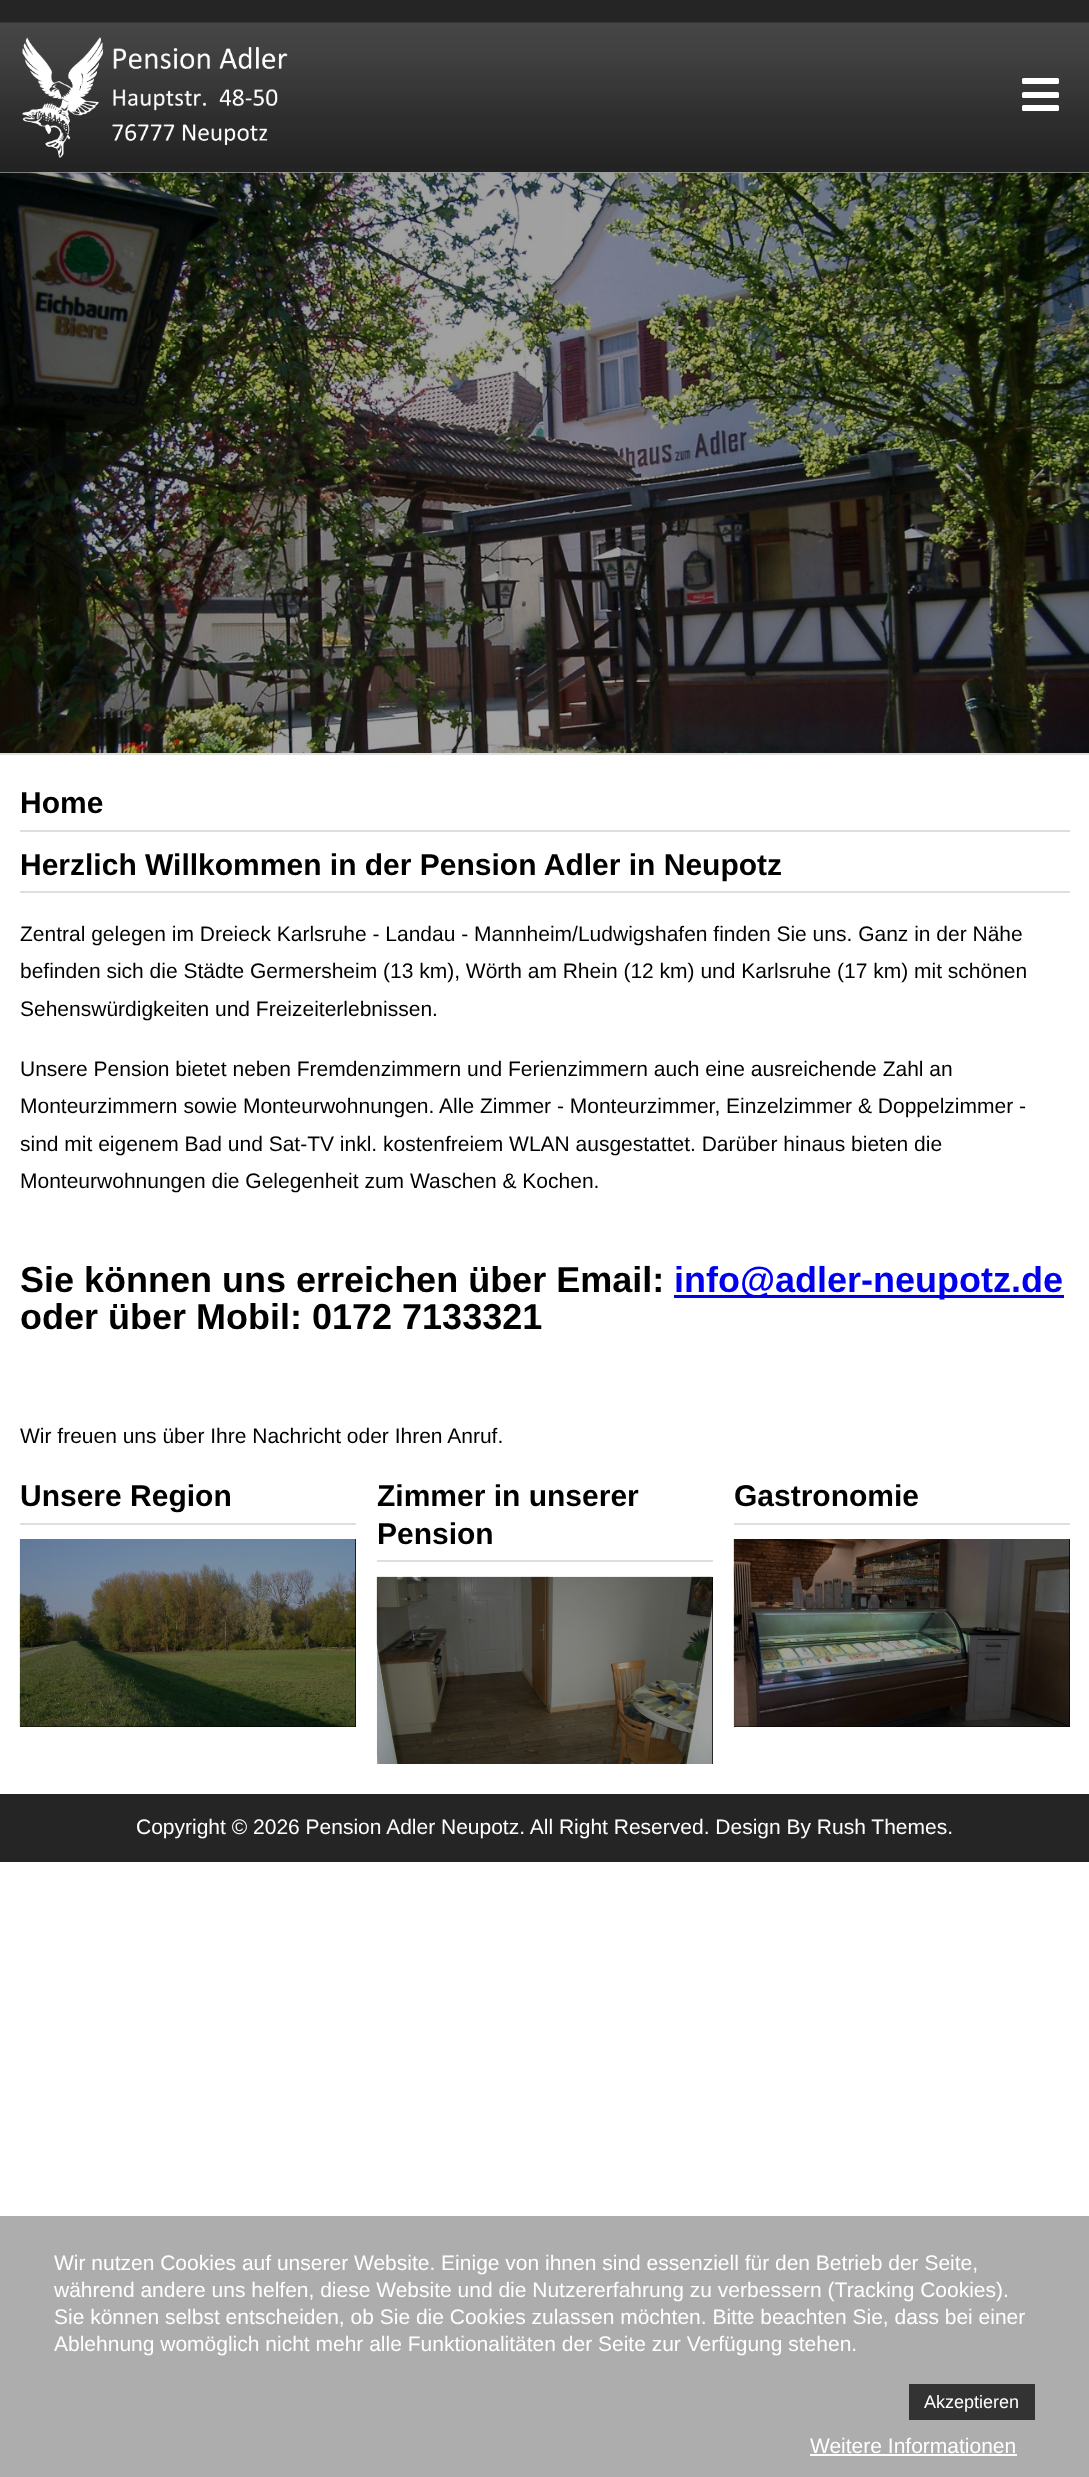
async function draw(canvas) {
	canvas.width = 1089;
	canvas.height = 2477;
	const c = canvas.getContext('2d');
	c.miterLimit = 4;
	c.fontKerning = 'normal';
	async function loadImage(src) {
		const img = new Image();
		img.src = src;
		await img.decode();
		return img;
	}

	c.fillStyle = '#fff';
	c.fillRect(0, 0, 1089, 2477);
	c.fillStyle = '#252525';
	c.fillRect(0, 0, 1089, 23);
	c.drawImage(await loadImage('img1.png'), 0, 22, 1089, 151);
	c.drawImage(await loadImage('img2.png'), 22, 37, 266, 121);
	c.fillStyle = '#fff';
	c.beginPath();
	c.roundRect(1022, 78, 37, 6, 1.5);
	c.fill();
	c.beginPath();
	c.roundRect(1022, 92, 37, 6, 1.5);
	c.fill();
	c.beginPath();
	c.roundRect(1022, 105, 37, 6, 1.5);
	c.fill();
	c.fillStyle = '#dedede';
	c.fillRect(0, 753, 1089, 2);
	c.fillStyle = '#000';
	c.fillRect(0, 173, 1089, 580);
	c.drawImage(await loadImage('img3.png'), 0, 172, 1089, 581);
	c.fillStyle = '#dedede';
	c.fillRect(20, 830, 1050, 2);
	c.font = 'bold 30px Liberation Sans';
	c.fillStyle = '#000';
	c.fillText('Home', 20, 813);
	c.fillStyle = '#dedede';
	c.fillRect(20, 891, 1050, 2);
	c.fillStyle = '#000';
	c.fillText('Herzlich Willkommen in der Pension Adler in Neupotz', 20, 875);
	c.font = '21px Liberation Sans';
	for (const [text, x, y] of [
		['Zentral gelegen im Dreieck Karlsruhe - Landau - Mannheim/Ludwigshafen finden Sie uns. Ganz in der Nähe', 20, 941],
		['befinden sich die Städte Germersheim (13 km), Wörth am Rhein (12 km) und Karlsruhe (17 km) mit schönen', 20, 978],
		['Sehenswürdigkeiten und Freizeiterlebnissen.', 20, 1016],
		['Unsere Pension bietet neben Fremdenzimmern und Ferienzimmern auch eine ausreichende Zahl an', 20, 1076],
		['Monteurzimmern sowie Monteurwohnungen. Alle Zimmer - Monteurzimmer, Einzelzimmer & Doppelzimmer -', 20, 1113],
		['sind mit eigenem Bad und Sat-TV inkl. kostenfreiem WLAN ausgestattet. Darüber hinaus bieten die', 20, 1151],
		['Monteurwohnungen die Gelegenheit zum Waschen & Kochen.', 20, 1188],
	]) {
		c.fillText(text, x, y);
	}
	c.font = 'bold 36px Liberation Sans';
	c.fillText('Sie können uns erreichen über Email:', 20, 1292);
	c.fillStyle = '#00e';
	c.fillRect(674, 1295, 390, 3);
	c.fillText('info@adler-neupotz.de', 674, 1292);
	c.fillStyle = '#000';
	c.fillText('oder über Mobil: 0172 7133321', 20, 1329);
	c.font = '21px Liberation Sans';
	c.fillText('Wir freuen uns über Ihre Nachricht oder Ihren Anruf.', 20, 1443);
	c.fillStyle = '#dedede';
	c.fillRect(20, 1523, 336, 2);
	c.font = 'bold 30px Liberation Sans';
	c.fillStyle = '#000';
	c.fillText('Unsere Region', 20, 1506);
	c.fillRect(20, 1539, 336, 188);
	c.drawImage(await loadImage('img4.png'), 19, 1539, 337, 188);
	c.fillStyle = '#dedede';
	c.fillRect(377, 1560, 336, 2);
	c.fillStyle = '#000';
	c.fillText('Zimmer in unserer', 377, 1506);
	c.fillText('Pension', 377, 1544);
	c.fillRect(377, 1577, 336, 187);
	c.drawImage(await loadImage('img5.png'), 376, 1576, 337, 188);
	c.fillStyle = '#dedede';
	c.fillRect(734, 1523, 336, 2);
	c.fillStyle = '#000';
	c.fillText('Gastronomie', 734, 1506);
	c.fillRect(734, 1539, 336, 188);
	c.drawImage(await loadImage('img6.png'), 733, 1539, 337, 188);
	c.fillStyle = '#252525';
	c.fillRect(0, 1794, 1089, 68);
	c.font = '21px Liberation Sans';
	c.fillStyle = '#fff';
	c.fillText('Copyright © 2026 Pension Adler Neupotz. All Right Reserved. Design By Rush Themes.', 136, 1834);
	c.fillStyle = '#adadad';
	c.fillRect(0, 2216, 1089, 261);
	c.fillStyle = '#fff';
	for (const [text, x, y] of [
		['Wir nutzen Cookies auf unserer Website. Einige von ihnen sind essenziell für den Betrieb der Seite,', 54, 2270],
		['während andere uns helfen, diese Website und die Nutzererfahrung zu verbessern (Tracking Cookies).', 54, 2297],
		['Sie können selbst entscheiden, ob Sie die Cookies zulassen möchten. Bitte beachten Sie, dass bei einer', 54, 2324],
		['Ablehnung womöglich nicht mehr alle Funktionalitäten der Seite zur Verfügung stehen.', 54, 2351],
	]) {
		c.fillText(text, x, y);
	}
	c.fillStyle = '#333';
	c.fillRect(909, 2384, 126, 36);
	c.font = '18px Liberation Sans';
	c.fillStyle = '#fff';
	c.fillText('Akzeptieren', 924, 2408);
	c.font = '21px Liberation Sans';
	c.fillText('Weitere Informationen', 810, 2453);
	c.fillRect(810, 2454, 207, 2);
}

draw(document.querySelector('canvas'));
